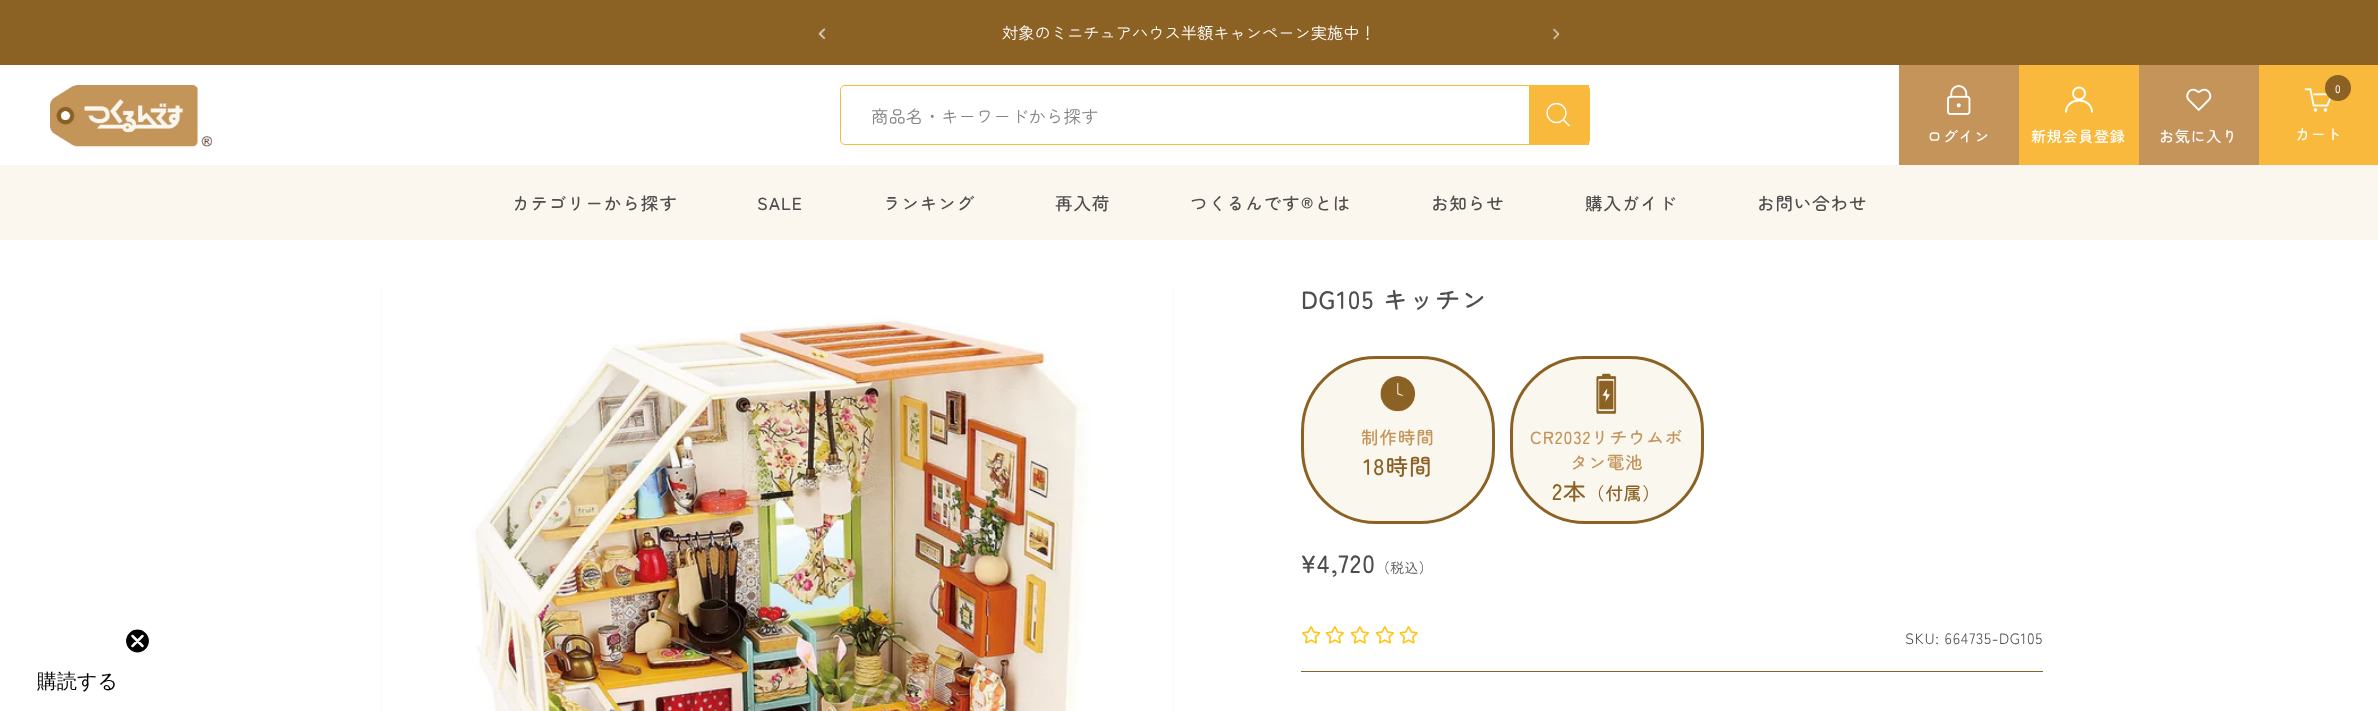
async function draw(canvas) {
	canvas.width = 2378;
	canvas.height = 711;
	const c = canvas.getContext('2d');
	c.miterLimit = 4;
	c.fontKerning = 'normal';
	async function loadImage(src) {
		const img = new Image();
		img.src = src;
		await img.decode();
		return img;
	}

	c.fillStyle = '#fff';
	c.fillRect(0, 0, 2378, 711);
	c.fillStyle = '#8b6124';
	c.fillRect(0, 0, 2378, 65);
	c.drawImage(await loadImage('img1.png'), 818, 27, 8, 13);
	c.font = '16.25px Zen Maru Gothic';
	c.fillStyle = '#fff';
	c.fillText('対象のミニチュアハウス半額キャンペーン実施中！', 1002, 39);
	c.drawImage(await loadImage('img2.png'), 1552, 28, 8, 12);
	c.fillStyle = '#fbf7ee';
	c.fillRect(0, 165, 2378, 75);
	c.drawImage(await loadImage('img3.png'), 50, 84, 163, 63);
	c.beginPath();
	c.roundRect(840.5, 85.5, 749, 59, 4.5);
	c.strokeStyle = '#f8b93d';
	c.stroke();
	c.font = '17.5px Zen Maru Gothic';
	c.fillStyle = '#838383';
	c.fillText('商品名・キーワードから探す', 871, 123);
	c.fillStyle = '#f8b93d';
	c.fillRect(1529, 85, 60, 60);
	c.save();
	c.beginPath();
	c.rect(1546, 103, 24, 25);
	c.clip();
	c.beginPath();
	c.arc(1556.5, 113, 9.5, 0, 2 * Math.PI);
	c.strokeStyle = '#fff';
	c.lineWidth = 1.5;
	c.stroke();
	c.restore();
	c.beginPath();
	c.moveTo(1563.5, 120);
	c.lineTo(1569.5, 126);
	c.strokeStyle = '#fff';
	c.lineWidth = 1.5;
	c.stroke();
	c.fillStyle = '#c4945a';
	c.fillRect(1899, 65, 120, 100);
	c.drawImage(await loadImage('img4.png'), 1947, 85, 24, 30);
	c.letterSpacing = '0.75px';
	c.font = '500 15px Zen Maru Gothic';
	c.fillStyle = '#fff';
	c.fillText('ログイン', 1927, 142);
	c.fillStyle = '#f8b93d';
	c.fillRect(2019, 65, 120, 100);
	c.beginPath();
	c.arc(2079, 93.5, 6, 0, 2 * Math.PI);
	c.lineWidth = 1.9;
	c.stroke();
	c.beginPath();
	c.moveTo(2092, 112.5);
	c.bezierCurveTo(2092, 96.5, 2066, 96.5, 2066, 112.5);
	c.stroke();
	c.fillStyle = '#fff';
	c.fillText('新規会員登録', 2031, 142);
	c.fillStyle = '#c4945a';
	c.fillRect(2139, 65, 120, 100);
	c.drawImage(await loadImage('img5.png'), 2186, 88, 26, 24);
	c.fillStyle = '#fff';
	c.fillText('お気に入り', 2159, 142);
	c.fillStyle = '#f8b93d';
	c.fillRect(2259, 65, 119, 100);
	c.drawImage(await loadImage('img6.png'), 2304, 88, 27, 24);
	c.fillStyle = '#8b6124';
	c.beginPath();
	c.arc(2338, 88, 13, 0, 2 * Math.PI);
	c.fill();
	c.letterSpacing = '0px';
	c.font = '500 11px Zen Maru Gothic';
	c.fillStyle = '#fbf7ee';
	c.fillText('0', 2335, 93);
	c.letterSpacing = '0.75px';
	c.font = '500 15px Zen Maru Gothic';
	c.fillStyle = '#fff';
	c.fillText('カート', 2295, 140);
	c.letterSpacing = '0.9px';
	c.font = '500 17.5px Zen Maru Gothic';
	c.fillStyle = '#4e4e4e';
	for (const [text, x, y] of [
		['カテゴリーから探す', 512, 210],
		['SALE', 757, 210],
		['ランキング', 883, 210],
		['再入荷', 1055, 210],
		['つくるんです®︎とは', 1190, 210],
		['お知らせ', 1431, 210],
		['購入ガイド', 1585, 210],
		['お問い合わせ', 1757, 210],
	]) {
		c.fillText(text, x, y);
	}
	c.fillStyle = '#fbf7ee';
	c.beginPath();
	c.roundRect(381, 280, 793, 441, 10);
	c.fill();
	c.drawImage(await loadImage('img7.png'), 381, 280, 793, 431);
	c.fillStyle = '#8b6124';
	c.fillRect(1301, 671, 742, 1);
	c.letterSpacing = '1.25px';
	c.font = '500 25px Zen Maru Gothic';
	c.fillStyle = '#4e4e4e';
	c.fillText('DG105 キッチン', 1301, 309);
	c.fillStyle = '#faf7ef';
	c.beginPath();
	c.roundRect(1302.5, 357.5, 191, 165, 73.5);
	c.fill();
	c.strokeStyle = '#8b6124';
	c.lineWidth = 3;
	c.stroke();
	c.drawImage(await loadImage('img8.png'), 1380, 376, 36, 36);
	c.letterSpacing = '0.9px';
	c.font = '500 17.5px Zen Maru Gothic';
	c.fillStyle = '#c4945a';
	c.fillText('制作時間', 1361, 444);
	c.letterSpacing = '1px';
	c.font = '500 22.5px Zen Maru Gothic';
	c.fillStyle = '#8b6124';
	c.fillText('18時間', 1363, 475);
	c.fillStyle = '#faf7ef';
	c.beginPath();
	c.roundRect(1511.5, 357.5, 191, 165, 73.5);
	c.fill();
	c.stroke();
	c.drawImage(await loadImage('img9.png'), 1596, 373, 21, 41);
	c.letterSpacing = '0.9px';
	c.font = '500 17.5px Zen Maru Gothic';
	c.fillStyle = '#c4945a';
	c.fillText('CR2032リチウムボ', 1530, 444);
	c.fillText('タン電池', 1570, 469);
	c.letterSpacing = '1px';
	c.font = '500 22.5px Zen Maru Gothic';
	c.fillStyle = '#8b6124';
	c.fillText('2本', 1552, 500);
	c.letterSpacing = '0.9px';
	c.font = '500 17.5px Zen Maru Gothic';
	c.fillText('（付属）', 1587, 500);
	c.letterSpacing = '1.25px';
	c.font = '500 25px Zen Maru Gothic';
	c.fillStyle = '#4e4e4e';
	c.fillText('¥4,720', 1301, 573);
	c.letterSpacing = '0.5px';
	c.font = '13.75px Zen Maru Gothic';
	c.fillText('（税込）', 1376, 573);
	c.drawImage(await loadImage('img10.png'), 1302, 626, 19, 18);
	c.drawImage(await loadImage('img11.png'), 1325, 626, 19, 18);
	c.drawImage(await loadImage('img11.png'), 1350, 626, 19, 18);
	c.drawImage(await loadImage('img11.png'), 1375, 626, 19, 18);
	c.drawImage(await loadImage('img12.png'), 1399, 626, 19, 18);
	c.letterSpacing = '0.75px';
	c.font = '15px Zen Maru Gothic';
	c.fillText('SKU: 664735-DG105', 1905, 644);
	c.fillStyle = '#000';
	c.beginPath();
	c.arc(137.5, 641, 12, 0, 2 * Math.PI);
	c.fill();
	c.strokeStyle = '#fff';
	c.lineWidth = 1.2;
	c.stroke();
	c.beginPath();
	c.moveTo(132.5, 636);
	c.lineTo(142.5, 646);
	c.moveTo(132.5, 646);
	c.lineTo(142.5, 636);
	c.closePath();
	c.lineWidth = 2.5;
	c.lineCap = 'round';
	c.lineJoin = 'round';
	c.stroke();
	c.letterSpacing = '0px';
	c.font = '500 20px WenQuanYi Zen Hei';
	c.fillText('購読する', 37, 688);
}

draw(document.querySelector('canvas'));
